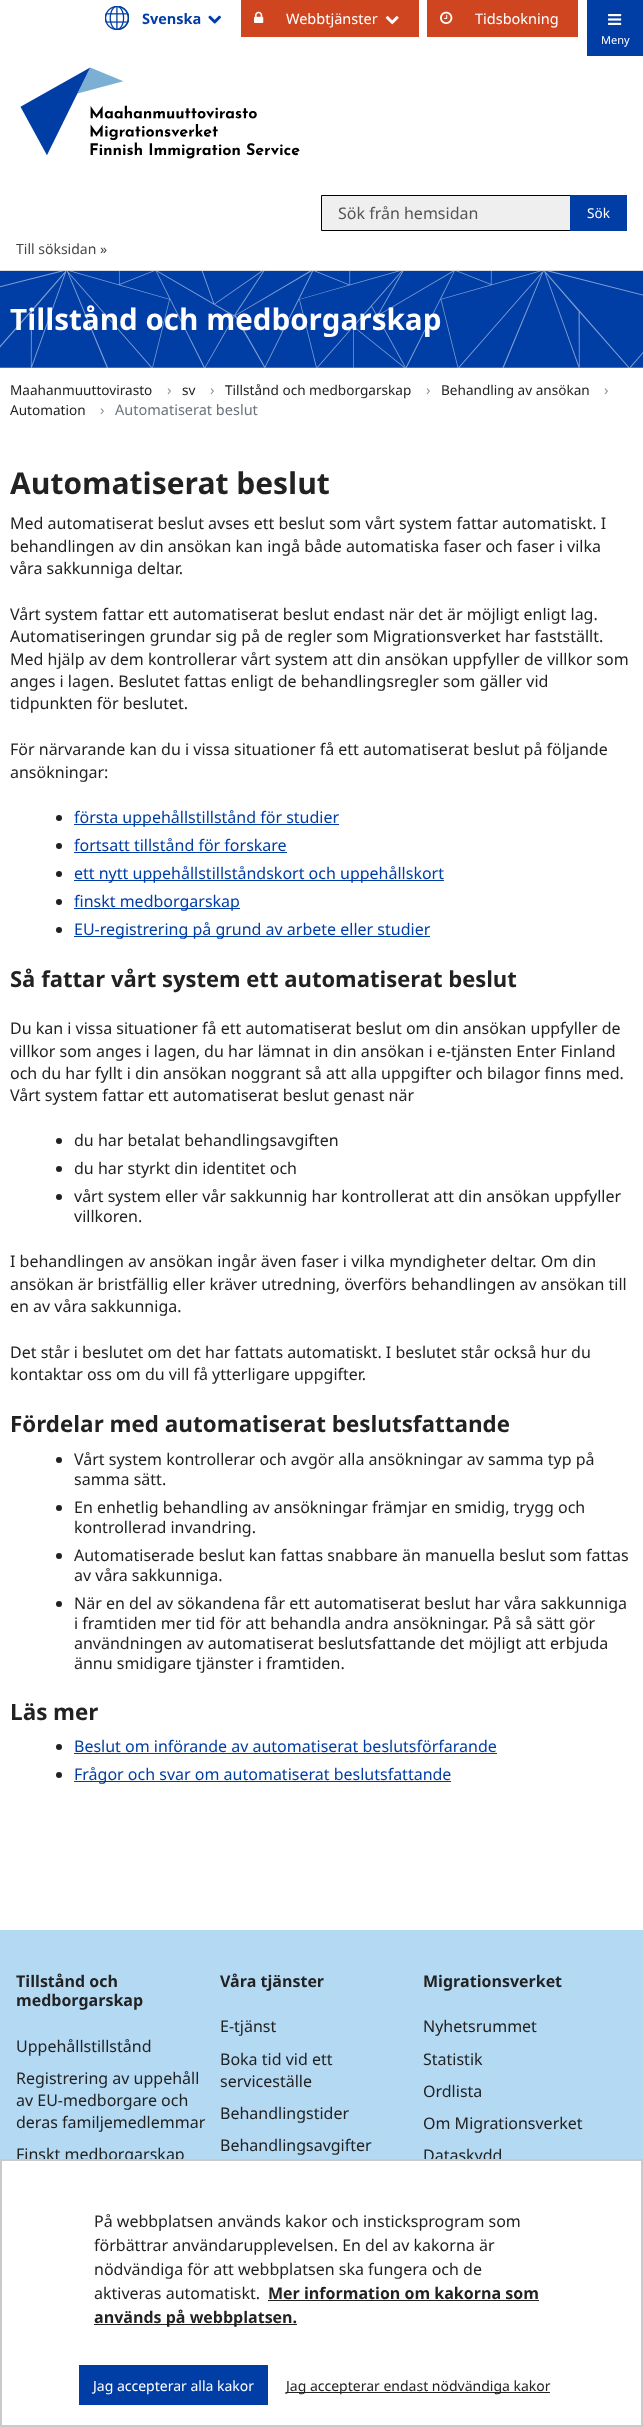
async function draw(canvas) {
	canvas.width = 643;
	canvas.height = 2427;
	const c = canvas.getContext('2d');
	c.miterLimit = 4;
	c.fontKerning = 'normal';
	async function loadImage(src) {
		const img = new Image();
		img.src = src;
		await img.decode();
		return img;
	}

	c.fillStyle = '#fff';
	c.fillRect(0, 0, 643, 2427);
	c.fillStyle = '#ddd';
	c.fillRect(0, 270, 643, 1);
	c.drawImage(await loadImage('img1.png'), 105, 6, 24, 24);
	c.font = 'bold 14.5px Noto Sans';
	c.fillStyle = '#003da5';
	c.fillText('Svenska', 142, 24);
	c.drawImage(await loadImage('img2.png'), 208, 15, 13, 9);
	c.fillStyle = '#cf4520';
	c.fillRect(241, 0, 178, 37);
	c.drawImage(await loadImage('img3.png'), 254, 11, 10, 12);
	c.font = '14.5px Noto Sans';
	c.fillStyle = '#fff';
	c.fillText('Webbtjänster', 286, 24);
	c.drawImage(await loadImage('img4.png'), 385, 16, 14, 9);
	c.fillStyle = '#cf4520';
	c.fillRect(427, 0, 151, 37);
	c.drawImage(await loadImage('img5.png'), 440, 11, 13, 13);
	c.fillStyle = '#fff';
	c.fillText('Tidsbokning', 475, 24);
	c.drawImage(await loadImage('img6.png'), 20, 67, 280, 92);
	c.fillStyle = '#efefef';
	c.beginPath();
	c.rect(321.5, 195.5, 249, 35);
	c.fill();
	c.strokeStyle = '#000';
	c.stroke();
	c.font = '16px Noto Sans';
	c.fillStyle = '#555';
	c.fillText('Sök från hemsidan', 338, 219);
	c.fillStyle = '#003da5';
	c.fillRect(570, 195, 57, 36);
	c.font = '13.6px Noto Sans';
	c.fillStyle = '#fff';
	c.fillText('Sök', 587, 218);
	c.font = '14px Noto Sans';
	c.fillStyle = '#454545';
	c.fillText('Till söksidan', 16, 254);
	c.fillText('»', 100, 254);
	c.fillStyle = '#003da5';
	c.fillRect(587, 0, 56, 56);
	c.drawImage(await loadImage('img7.png'), 608, 14, 14, 11);
	c.font = '11px Noto Sans';
	c.fillStyle = '#fff';
	c.fillText('Meny', 601, 44);
	c.drawImage(await loadImage('img8.png'), 0, 271, 643, 97);
	c.font = 'bold 29.6px Noto Sans';
	c.fillText('Tillstånd och medborgarskap', 10, 330);
	c.font = '13.6px Noto Sans';
	c.fillStyle = '#222';
	c.fillText('Maahanmuuttovirasto', 10, 395);
	c.font = '14.5px Noto Sans';
	c.fillStyle = '#949494';
	c.fillText('›', 167, 395);
	c.font = '13.6px Noto Sans';
	c.fillStyle = '#222';
	c.fillText('sv', 182, 395);
	c.font = '14.5px Noto Sans';
	c.fillStyle = '#949494';
	c.fillText('›', 210, 395);
	c.font = '13.6px Noto Sans';
	c.fillStyle = '#222';
	c.fillText('Tillstånd och medborgarskap', 225, 395);
	c.font = '14.5px Noto Sans';
	c.fillStyle = '#949494';
	c.fillText('›', 426, 395);
	c.font = '13.6px Noto Sans';
	c.fillStyle = '#222';
	c.fillText('Behandling av ansökan', 441, 395);
	c.font = '14.5px Noto Sans';
	c.fillStyle = '#949494';
	c.fillText('›', 604, 395);
	c.font = '13.6px Noto Sans';
	c.fillStyle = '#222';
	c.fillText('Automation', 10, 415);
	c.font = '14.5px Noto Sans';
	c.fillStyle = '#949494';
	c.fillText('›', 100, 415);
	c.fillStyle = '#6c757d';
	c.fillText('Automatiserat beslut', 115, 415);
	c.font = 'bold 30px Noto Sans';
	c.fillStyle = '#222';
	c.fillText('Automatiserat beslut', 10, 494);
	c.font = '16px Noto Sans';
	for (const [text, x, y] of [
		['Med automatiserat beslut avses ett beslut som vårt system fattar automatiskt. I', 10, 529],
		['behandlingen av din ansökan kan ingå både automatiska faser och faser i vilka', 10, 552],
		['våra sakkunniga deltar.', 10, 574],
		['Vårt system fattar ett automatiserat beslut endast när det är möjligt enligt lag.', 10, 620],
		['Automatiseringen grundar sig på de regler som Migrationsverket har fastställt.', 10, 642],
		['Med hjälp av dem kontrollerar vårt system att din ansökan uppfyller de villkor som', 10, 665],
		['anges i lagen. Beslutet fattas enligt de behandlingsregler som gäller vid', 10, 687],
		['tidpunkten för beslutet.', 10, 709],
		['För närvarande kan du i vissa situationer få ett automatiserat beslut på följande', 10, 755],
		['ansökningar:', 10, 778],
	]) {
		c.fillText(text, x, y);
	}
	c.beginPath();
	c.arc(59, 818, 3, 0, 2 * Math.PI);
	c.fill();
	c.fillStyle = '#003da5';
	c.fillRect(74, 824, 265, 1);
	c.fillText('första uppehållstillstånd för studier', 74, 823);
	c.fillStyle = '#222';
	c.beginPath();
	c.arc(59, 846, 3, 0, 2 * Math.PI);
	c.fill();
	c.fillStyle = '#003da5';
	c.fillText('fortsatt tillstånd för forskare', 74, 851);
	c.fillRect(74, 852, 213, 1);
	c.fillStyle = '#222';
	c.beginPath();
	c.arc(59, 874, 3, 0, 2 * Math.PI);
	c.fill();
	c.fillStyle = '#003da5';
	c.fillRect(74, 880, 370, 1);
	c.fillText('ett nytt uppehållstillståndskort och uppehållskort', 74, 879);
	c.fillStyle = '#222';
	c.beginPath();
	c.arc(59, 902, 3, 0, 2 * Math.PI);
	c.fill();
	c.fillStyle = '#003da5';
	c.fillRect(74, 908, 166, 1);
	c.fillText('finskt medborgarskap', 74, 907);
	c.fillStyle = '#222';
	c.beginPath();
	c.arc(59, 930, 3, 0, 2 * Math.PI);
	c.fill();
	c.fillStyle = '#003da5';
	c.fillRect(74, 936, 356, 1);
	c.fillText('EU-registrering på grund av arbete eller studier', 74, 935);
	c.font = 'bold 22px Noto Sans';
	c.fillStyle = '#222';
	c.fillText('Så fattar vårt system ett automatiserat beslut', 10, 987);
	c.font = '16px Noto Sans';
	for (const [text, x, y] of [
		['Du kan i vissa situationer få ett automatiserat beslut om din ansökan uppfyller de', 10, 1034],
		['villkor som anges i lagen, du har lämnat in din ansökan i e-tjänsten Enter Finland', 10, 1057],
		['och du har fyllt i din ansökan noggrant så att alla uppgifter och bilagor finns med.', 10, 1079],
		['Vårt system fattar ett automatiserat beslut genast när', 10, 1101],
	]) {
		c.fillText(text, x, y);
	}
	c.beginPath();
	c.arc(59, 1141, 3, 0, 2 * Math.PI);
	c.fill();
	c.fillText('du har betalat behandlingsavgiften', 74, 1146);
	c.beginPath();
	c.arc(59, 1169, 3, 0, 2 * Math.PI);
	c.fill();
	c.fillText('du har styrkt din identitet och', 74, 1174);
	c.beginPath();
	c.arc(59, 1197, 3, 0, 2 * Math.PI);
	c.fill();
	for (const [text, x, y] of [
		['vårt system eller vår sakkunnig har kontrollerat att din ansökan uppfyller', 74, 1202],
		['villkoren.', 74, 1222],
		['I behandlingen av ansökan ingår även faser i vilka myndigheter deltar. Om din', 10, 1267],
		['ansökan är bristfällig eller kräver utredning, överförs behandlingen av ansökan till', 10, 1290],
		['en av våra sakkunniga.', 10, 1312],
		['Det står i beslutet om det har fattats automatiskt. I beslutet står också hur du', 10, 1358],
		['kontaktar oss om du vill få ytterligare uppgifter.', 10, 1380],
	]) {
		c.fillText(text, x, y);
	}
	c.font = 'bold 22.4px Noto Sans';
	c.fillText('Fördelar med automatiserat beslutsfattande', 10, 1432);
	c.beginPath();
	c.arc(59, 1460, 3, 0, 2 * Math.PI);
	c.fill();
	c.font = '16px Noto Sans';
	c.fillText('Vårt system kontrollerar och avgör alla ansökningar av samma typ på', 74, 1465);
	c.fillText('samma sätt.', 74, 1485);
	c.beginPath();
	c.arc(59, 1508, 3, 0, 2 * Math.PI);
	c.fill();
	c.fillText('En enhetlig behandling av ansökningar främjar en smidig, trygg och', 74, 1513);
	c.fillText('kontrollerad invandring.', 74, 1533);
	c.beginPath();
	c.arc(59, 1556, 3, 0, 2 * Math.PI);
	c.fill();
	c.fillText('Automatiserade beslut kan fattas snabbare än manuella beslut som fattas', 74, 1561);
	c.fillText('av våra sakkunniga.', 74, 1581);
	c.beginPath();
	c.arc(59, 1604, 3, 0, 2 * Math.PI);
	c.fill();
	for (const [text, x, y] of [
		['När en del av sökandena får ett automatiserat beslut har våra sakkunniga', 74, 1609],
		['i framtiden mer tid för att behandla andra ansökningar. På så sätt gör', 74, 1629],
		['användningen av automatiserat beslutsfattande det möjligt att erbjuda', 74, 1649],
		['ännu smidigare tjänster i framtiden.', 74, 1669],
	]) {
		c.fillText(text, x, y);
	}
	c.font = 'bold 22.4px Noto Sans';
	c.fillText('Läs mer', 10, 1720);
	c.beginPath();
	c.arc(59, 1747, 3, 0, 2 * Math.PI);
	c.fill();
	c.font = '16px Noto Sans';
	c.fillStyle = '#003da5';
	c.fillText('Beslut om införande av automatiserat beslutsförfarande', 74, 1752);
	c.fillRect(74, 1753, 423, 1);
	c.fillStyle = '#222';
	c.beginPath();
	c.arc(59, 1775, 3, 0, 2 * Math.PI);
	c.fill();
	c.fillStyle = '#003da5';
	c.fillRect(74, 1781, 377, 1);
	c.fillText('Frågor och svar om automatiserat beslutsfattande', 74, 1780);
	c.fillStyle = '#b4d9f3';
	c.fillRect(0, 1930, 643, 229);
	c.font = 'bold 16px Noto Sans';
	c.fillStyle = '#222';
	c.fillText('Tillstånd och', 16, 1987);
	c.fillText('medborgarskap', 16, 2006);
	c.font = '16px Noto Sans';
	for (const [text, x, y] of [
		['Uppehållstillstånd', 16, 2052],
		['Registrering av uppehåll', 16, 2084],
		['av EU-medborgare och', 16, 2106],
		['deras familjemedlemmar', 16, 2128],
		['Finskt medborgarskap', 16, 2160],
	]) {
		c.fillText(text, x, y);
	}
	c.font = 'bold 16px Noto Sans';
	c.fillText('Våra tjänster', 220, 1987);
	c.font = '16px Noto Sans';
	for (const [text, x, y] of [
		['E-tjänst', 220, 2032],
		['Boka tid vid ett', 220, 2065],
		['serviceställe', 220, 2087],
		['Behandlingstider', 220, 2119],
		['Behandlingsavgifter', 220, 2151],
	]) {
		c.fillText(text, x, y);
	}
	c.font = 'bold 16px Noto Sans';
	c.fillText('Migrationsverket', 423, 1987);
	c.font = '16px Noto Sans';
	for (const [text, x, y] of [
		['Nyhetsrummet', 423, 2032],
		['Statistik', 423, 2065],
		['Ordlista', 423, 2097],
		['Om Migrationsverket', 423, 2129],
		['Dataskydd', 423, 2161],
	]) {
		c.fillText(text, x, y);
	}
	c.fillStyle = '#fefefe';
	c.fillRect(125, 2161, 374, 4);
	c.strokeStyle = '#cacaca';
	c.lineWidth = 2;
	c.strokeRect(1, 2160, 641, 266);
	c.fillStyle = '#222';
	for (const [text, x, y] of [
		['På webbplatsen används kakor och insticksprogram som', 94, 2227],
		['förbättrar användarupplevelsen. En del av kakorna är', 94, 2251],
		['nödvändiga för att webbplatsen ska fungera och de', 94, 2275],
		['aktiveras automatiskt.', 94, 2299],
	]) {
		c.fillText(text, x, y);
	}
	c.font = 'bold 16px Noto Sans';
	c.fillText('Mer information om kakorna som', 268, 2299);
	c.fillRect(268, 2300, 271, 1);
	c.fillRect(94, 2324, 203, 1);
	c.fillText('används på webbplatsen.', 94, 2323);
	c.fillStyle = '#003da5';
	c.fillRect(79, 2365, 189, 40);
	c.font = '14px Noto Sans';
	c.fillStyle = '#fff';
	c.fillText('Jag accepterar alla kakor', 93, 2391);
	c.fillStyle = '#222';
	c.fillRect(286, 2392, 264, 1);
	c.fillText('Jag accepterar endast nödvändiga kakor', 286, 2391);
}

draw(document.querySelector('canvas'));
